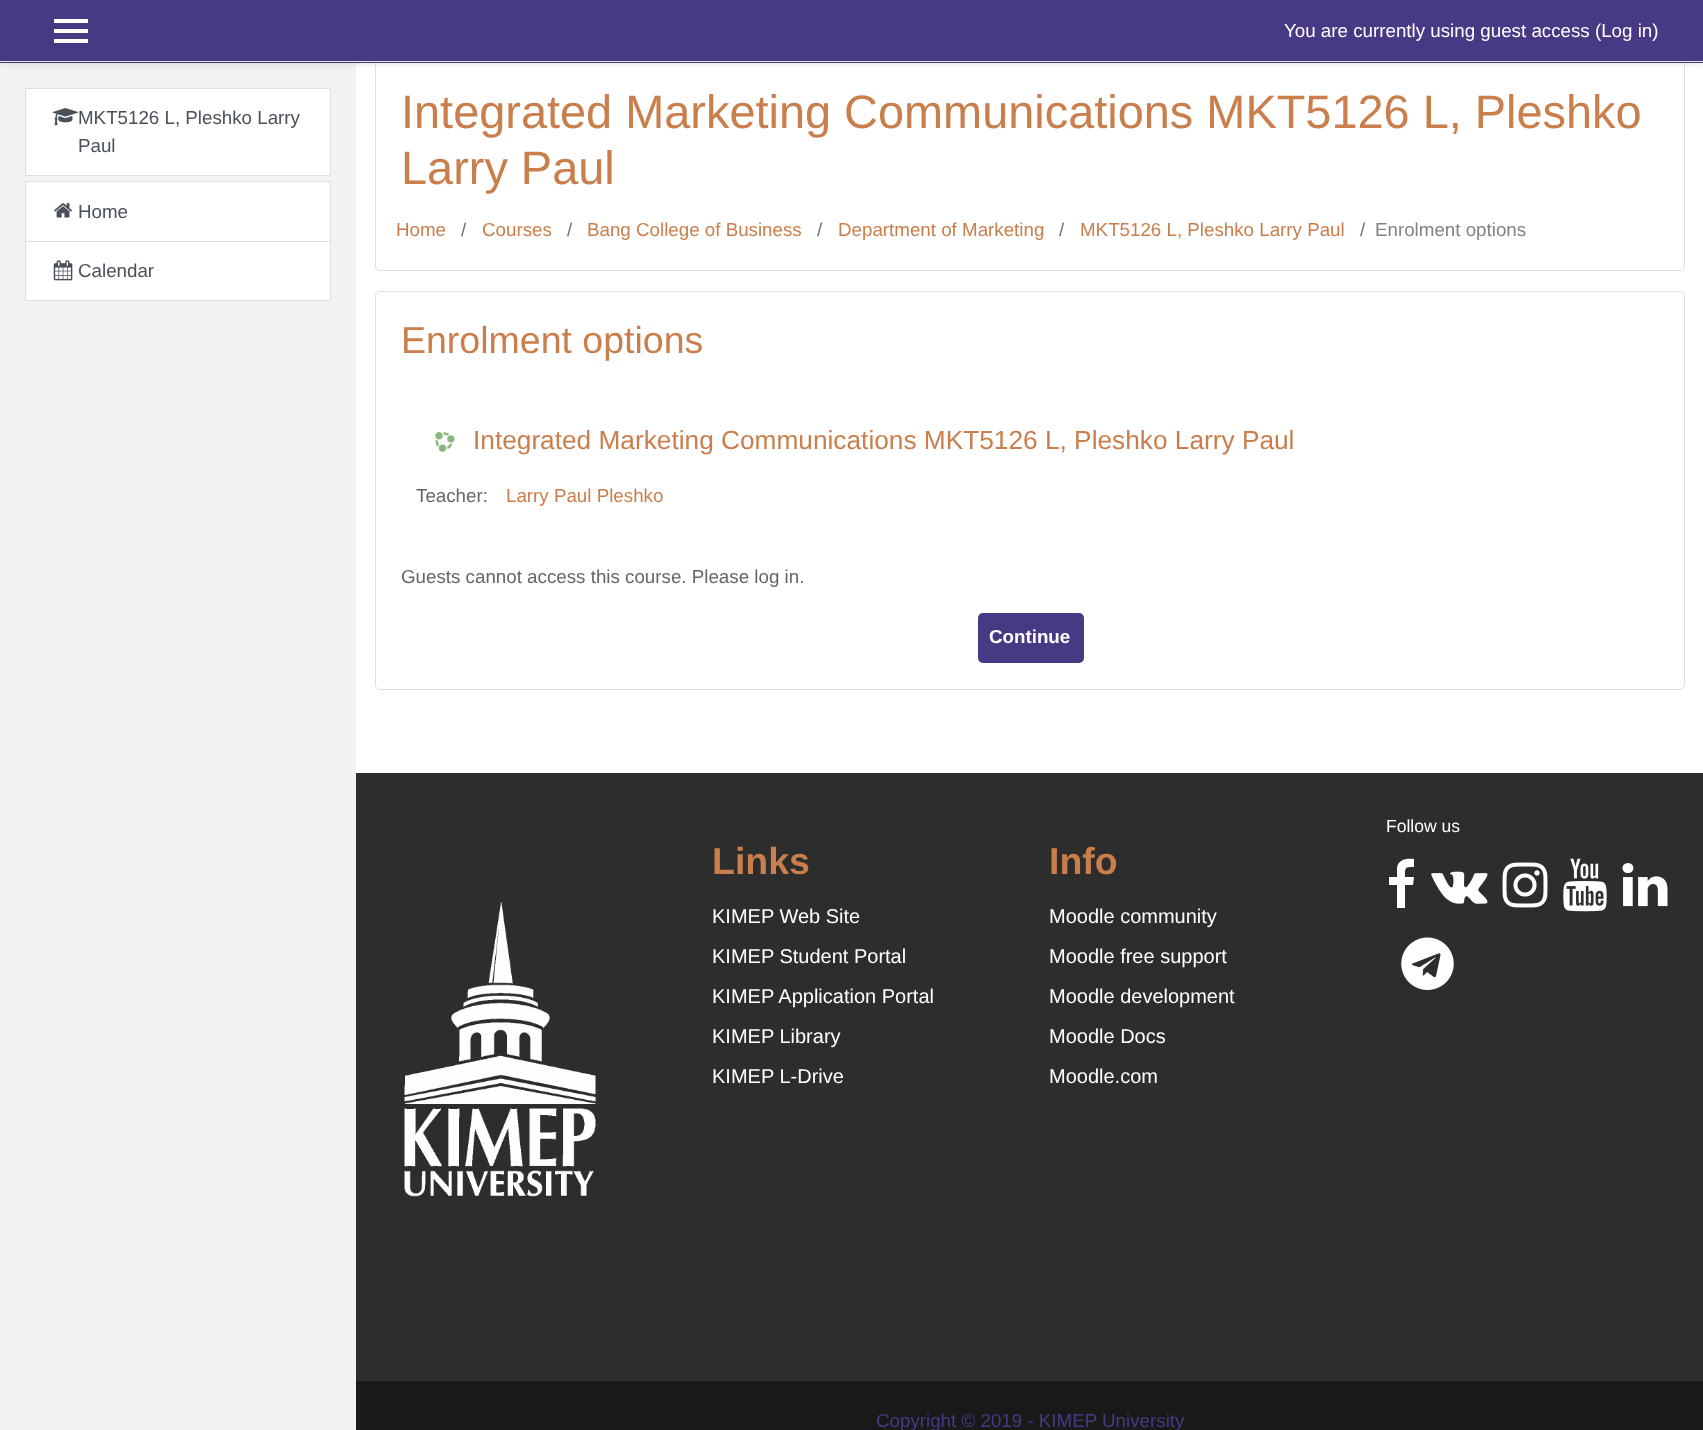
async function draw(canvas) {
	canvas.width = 1703;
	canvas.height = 1430;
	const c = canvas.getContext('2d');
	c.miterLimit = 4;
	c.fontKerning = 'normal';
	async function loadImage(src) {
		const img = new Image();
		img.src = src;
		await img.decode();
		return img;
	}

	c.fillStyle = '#fff';
	c.fillRect(0, 0, 1703, 1430);
	c.fillStyle = '#f2f2f2';
	c.fillRect(0, 63, 356, 1367);
	c.beginPath();
	c.roundRect(375.5, 58.5, 1309, 212, 4.5);
	c.strokeStyle = '#dfdfdf';
	c.stroke();
	c.fillStyle = '#00000014';
	c.filter = 'blur(2.5px)';
	c.beginPath();
	c.rect(0, 3, 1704, 62);
	c.fill();
	c.filter = 'none';
	for (const [x, y, w, h, color] of [
		[0, 0, 1703, 63, '#473984'],
		[0, 61, 1703, 1, '#e8e3e3'],
		[54, 19, 34, 4, '#fff'],
		[54, 29, 34, 4, '#fff'],
		[54, 39, 34, 4, '#fff'],
	]) {
		c.fillStyle = color;
		c.fillRect(x, y, w, h);
	}
	c.font = '18.75px Liberation Sans';
	c.fillText('You are currently using guest access (Log in)', 1284, 37);
	c.beginPath();
	c.rect(25.5, 88.5, 305, 87);
	c.fill();
	c.stroke();
	c.drawImage(await loadImage('img1.png'), 52, 108, 27, 18);
	c.fillStyle = '#495057';
	c.fillText('MKT5126 L, Pleshko Larry', 78, 124);
	c.fillText('Paul', 78, 152);
	c.fillStyle = '#fff';
	c.fillRect(26, 182, 304, 59);
	c.strokeRect(25.5, 181.5, 305, 61);
	c.drawImage(await loadImage('img2.png'), 54, 203, 18, 15);
	c.fillStyle = '#495057';
	c.fillText('Home', 78, 218);
	c.fillStyle = '#fff';
	c.beginPath();
	c.rect(25.5, 241.5, 305, 59);
	c.fill();
	c.stroke();
	c.drawImage(await loadImage('img3.png'), 53, 260, 20, 21);
	c.fillStyle = '#495057';
	c.fillText('Calendar', 78, 277);
	c.font = '46.9px Liberation Sans';
	c.fillStyle = '#c97e4c';
	c.fillText('Integrated Marketing Communications MKT5126 L, Pleshko', 401, 128);
	c.fillText('Larry Paul', 401, 184);
	c.font = '18.75px Liberation Sans';
	c.fillText('Home', 396, 236);
	c.fillStyle = '#6a737b';
	c.fillText('/', 461, 236);
	c.fillStyle = '#c97e4c';
	c.fillText('Courses', 482, 236);
	c.fillStyle = '#6a737b';
	c.fillText('/', 567, 236);
	c.fillStyle = '#c97e4c';
	c.fillText('Bang College of Business', 587, 236);
	c.fillStyle = '#6a737b';
	c.fillText('/', 817, 236);
	c.fillStyle = '#c97e4c';
	c.fillText('Department of Marketing', 838, 236);
	c.fillStyle = '#6a737b';
	c.fillText('/', 1059, 236);
	c.fillStyle = '#c97e4c';
	c.fillText('MKT5126 L, Pleshko Larry Paul', 1080, 236);
	c.fillStyle = '#6a737b';
	c.fillText('/', 1360, 236);
	c.fillStyle = '#828282';
	c.fillText('Enrolment options', 1375, 236);
	c.beginPath();
	c.roundRect(375.5, 291.5, 1309, 398, 4.5);
	c.stroke();
	c.font = '37.5px Liberation Sans';
	c.fillStyle = '#c97e4c';
	c.fillText('Enrolment options', 401, 353);
	c.drawImage(await loadImage('img4.png'), 435, 432, 20, 20);
	c.font = '26.25px Liberation Sans';
	c.fillText('Integrated Marketing Communications MKT5126 L, Pleshko Larry Paul', 473, 449);
	c.font = '18.75px Liberation Sans';
	c.fillStyle = '#656565';
	c.fillText('Teacher:', 416, 502);
	c.fillStyle = '#c97e4c';
	c.fillText('Larry Paul Pleshko', 506, 502);
	c.fillStyle = '#656565';
	c.fillText('Guests cannot access this course. Please log in.', 401, 583);
	c.fillStyle = '#473984';
	c.beginPath();
	c.roundRect(978, 613, 106, 50, 5);
	c.fill();
	c.font = 'bold 18.75px Liberation Sans';
	c.fillStyle = '#fff';
	c.fillText('Continue', 989, 643);
	c.fillStyle = '#2d2d2d';
	c.fillRect(356, 773, 1347, 608);
	c.font = '17.5px Liberation Sans';
	c.fillStyle = '#fff';
	c.fillText('Follow us', 1386, 832);
	c.beginPath();
	c.moveTo(1414, 859);
	c.lineTo(1414, 867);
	c.bezierCurveTo(1405, 867, 1405, 867, 1405, 877);
	c.lineTo(1414, 877);
	c.lineTo(1413, 885);
	c.lineTo(1405, 885);
	c.lineTo(1405, 908);
	c.lineTo(1397, 908);
	c.lineTo(1397, 885);
	c.lineTo(1389, 885);
	c.lineTo(1389, 877);
	c.lineTo(1397, 877);
	c.lineTo(1397, 868);
	c.bezierCurveTo(1398, 859, 1407, 858, 1414, 859);
	c.closePath();
	c.fill();
	c.drawImage(await loadImage('img5.png'), 1431, 871, 57, 33);
	c.drawImage(await loadImage('img6.png'), 1502, 862, 46, 46);
	c.drawImage(await loadImage('img7.png'), 1563, 858, 44, 54);
	c.drawImage(await loadImage('img8.png'), 1622, 863, 46, 44);
	c.drawImage(await loadImage('img9.png'), 1401, 937, 53, 53);
	c.drawImage(await loadImage('img10.png'), 404, 902, 192, 295);
	c.font = 'bold 37.5px Liberation Sans';
	c.fillStyle = '#c97e4c';
	c.fillText('Links', 712, 874);
	c.font = '20px Liberation Sans';
	c.fillStyle = '#fff';
	for (const [text, x, y] of [
		['KIMEP Web Site', 712, 923],
		['KIMEP Student Portal', 712, 963],
		['KIMEP Application Portal', 712, 1003],
		['KIMEP Library', 712, 1043],
		['KIMEP L-Drive', 712, 1083],
	]) {
		c.fillText(text, x, y);
	}
	c.font = 'bold 37.5px Liberation Sans';
	c.fillStyle = '#c97e4c';
	c.fillText('Info', 1049, 874);
	c.font = '20px Liberation Sans';
	c.fillStyle = '#fff';
	for (const [text, x, y] of [
		['Moodle community', 1049, 923],
		['Moodle free support', 1049, 963],
		['Moodle development', 1049, 1003],
		['Moodle Docs', 1049, 1043],
		['Moodle.com', 1049, 1083],
	]) {
		c.fillText(text, x, y);
	}
	c.fillStyle = '#191919';
	c.fillRect(356, 1381, 1347, 49);
	c.font = '18.75px Liberation Sans';
	c.fillStyle = '#473984';
	c.fillText('Copyright © 2019 - KIMEP University', 876, 1427);
}

draw(document.querySelector('canvas'));
